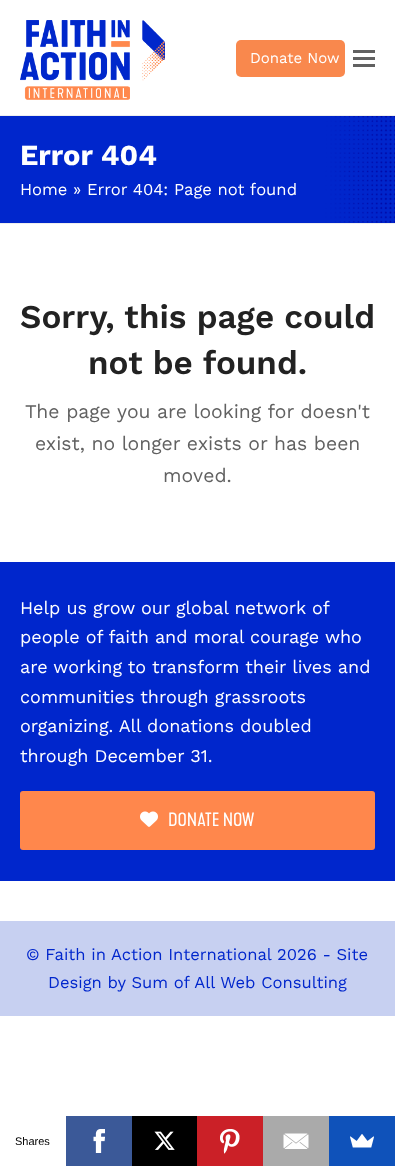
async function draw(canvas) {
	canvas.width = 395;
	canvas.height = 1166;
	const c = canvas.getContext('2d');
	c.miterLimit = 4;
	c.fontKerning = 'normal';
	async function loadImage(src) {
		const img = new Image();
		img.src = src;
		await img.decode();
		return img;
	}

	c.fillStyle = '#fff';
	c.fillRect(0, 0, 395, 1166);
	c.drawImage(await loadImage('img1.png'), 20, 20, 145, 80);
	c.fillStyle = '#f9884d';
	c.beginPath();
	c.roundRect(236, 40, 109, 37, 5);
	c.fill();
	c.font = '15px Work Sans';
	c.fillStyle = '#fff';
	c.fillText('Donate Now', 250, 63);
	for (const [x, y, w, h, color] of [
		[353, 57, 22, 3, '#616161'],
		[353, 50, 22, 3, '#616161'],
		[353, 64, 22, 3, '#616161'],
	]) {
		c.fillStyle = color;
		c.fillRect(x, y, w, h);
	}
	c.drawImage(await loadImage('img2.png'), 0, 116, 395, 107);
	c.fillStyle = '#eee';
	c.fillRect(0, 115, 395, 1);
	c.fillRect(0, 223, 395, 1);
	c.font = 'bold 29px Work Sans';
	c.fillStyle = '#fff';
	c.fillText('Error 404', 20, 165);
	c.font = '16.6px Work Sans';
	c.fillText('Home » Error 404: Page not found', 20, 195);
	c.font = '600 33.25px Work Sans';
	c.fillStyle = '#222';
	c.fillText('Sorry, this page could', 20, 328);
	c.fillText('not be found.', 88, 374);
	c.font = '19.4px Work Sans';
	c.fillStyle = '#616161';
	for (const [text, x, y] of [
		['The page you are looking for doesn\'t', 25, 418],
		['exist, no longer exists or has been', 35, 450],
		['moved.', 163, 482],
	]) {
		c.fillText(text, x, y);
	}
	c.fillStyle = '#0026cc';
	c.fillRect(0, 562, 395, 319);
	c.font = '18px Work Sans';
	c.fillStyle = '#fff';
	for (const [text, x, y] of [
		['Help us grow our global network of', 20, 614],
		['people of faith and moral courage who', 20, 643],
		['are working to transform their lives and', 20, 673],
		['communities through grassroots', 20, 703],
		['organizing. All donations doubled', 20, 732],
		['through December 31.', 20, 762],
	]) {
		c.fillText(text, x, y);
	}
	c.fillStyle = '#ff874c';
	c.beginPath();
	c.roundRect(20, 791, 355, 59, 3);
	c.fill();
	c.drawImage(await loadImage('img3.png'), 140, 811, 18, 16);
	c.font = '18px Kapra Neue';
	c.fillStyle = '#fff';
	c.fillText('DONATE NOW', 168, 826);
	c.fillStyle = '#c7d0f1';
	c.fillRect(0, 921, 395, 95);
	c.font = '16.6px Work Sans';
	c.fillStyle = '#0026cc';
	c.fillText('© Faith in Action International 2026 - Site', 26, 960);
	c.fillText('Design by Sum of All Web Consulting', 48, 988);
	c.font = '11px Liberation Sans';
	c.fillStyle = '#000';
	c.fillText('Shares', 15, 1145);
	c.fillStyle = '#3b5998';
	c.fillRect(66, 1116, 66, 50);
	c.drawImage(await loadImage('img4.png'), 93, 1129, 12, 24);
	c.fillStyle = '#000';
	c.fillRect(132, 1116, 65, 50);
	c.drawImage(await loadImage('img5.png'), 154, 1131, 21, 19);
	c.fillStyle = '#cb2027';
	c.fillRect(197, 1116, 66, 50);
	c.drawImage(await loadImage('img6.png'), 220, 1129, 20, 25);
	c.fillStyle = '#aaa';
	c.fillRect(263, 1116, 66, 50);
	c.drawImage(await loadImage('img7.png'), 283, 1133, 26, 16);
	c.fillStyle = '#0f52ba';
	c.fillRect(329, 1116, 66, 50);
	c.drawImage(await loadImage('img8.png'), 350, 1134, 24, 14);
}

draw(document.querySelector('canvas'));
